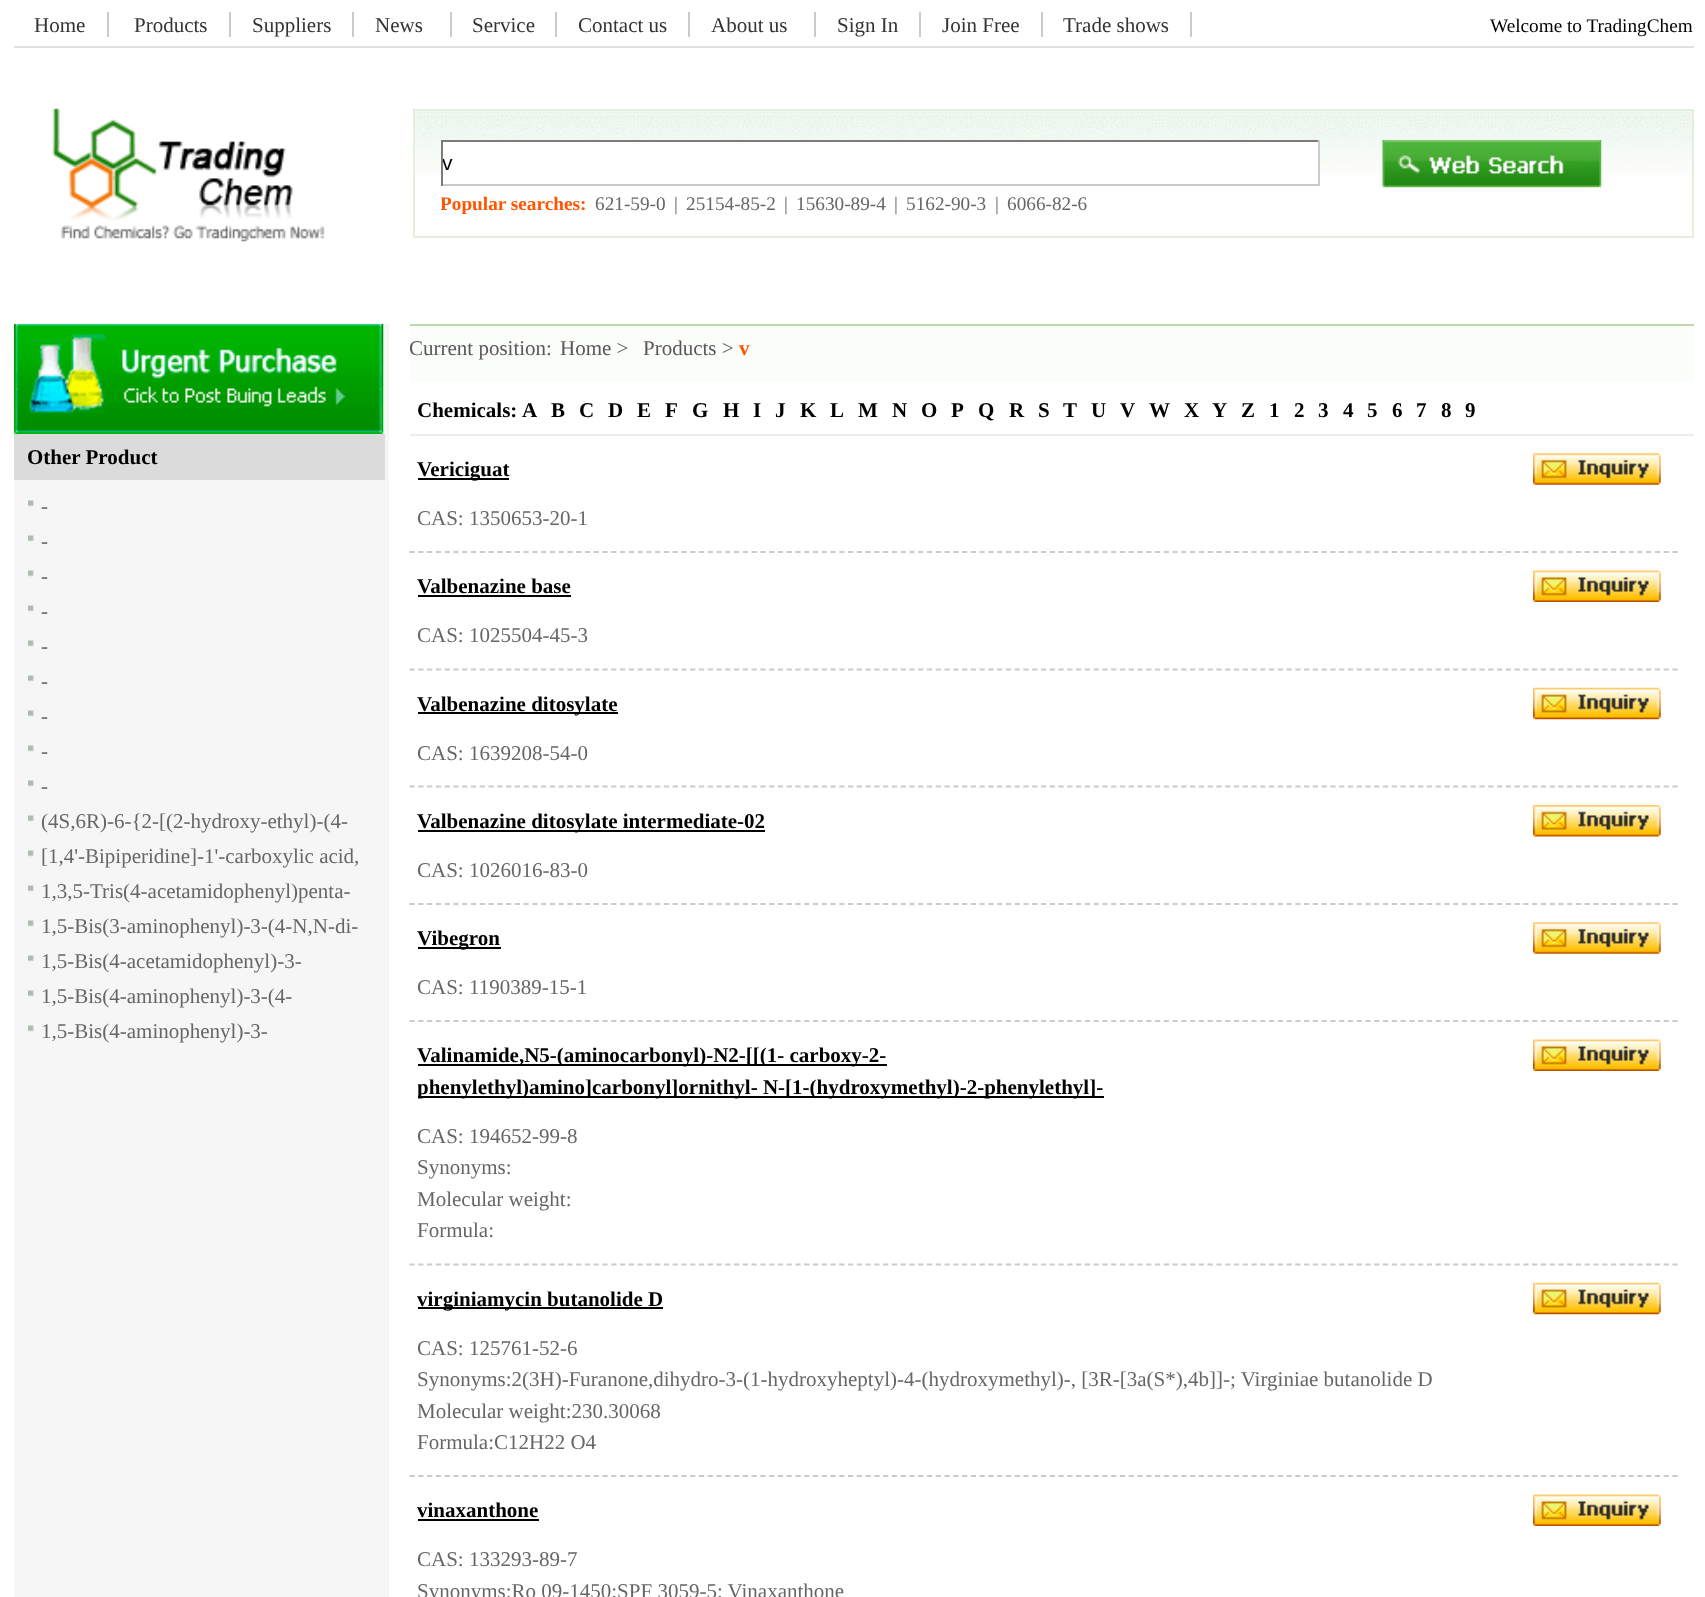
async function draw(canvas) {
	canvas.width = 1705;
	canvas.height = 1597;
	const c = canvas.getContext('2d');
	c.miterLimit = 4;
	c.fontKerning = 'normal';
	async function loadImage(src) {
		const img = new Image();
		img.src = src;
		await img.decode();
		return img;
	}

	c.fillStyle = '#fff';
	c.fillRect(0, 0, 1705, 1597);
	c.fillStyle = '#e1e1e1';
	c.fillRect(14, 46, 1680, 2);
	c.font = '21px Liberation Serif';
	c.fillStyle = '#333';
	c.fillText('Home', 34, 32);
	c.fillStyle = '#cbcbcb';
	c.fillRect(107, 12, 2, 25);
	c.fillStyle = '#333';
	c.fillText('Products', 134, 32);
	c.fillStyle = '#cbcbcb';
	c.fillRect(229, 12, 2, 25);
	c.fillStyle = '#333';
	c.fillText('Suppliers', 252, 32);
	c.fillStyle = '#cbcbcb';
	c.fillRect(352, 12, 2, 25);
	c.fillStyle = '#333';
	c.fillText('News', 375, 32);
	c.fillStyle = '#cbcbcb';
	c.fillRect(450, 12, 2, 25);
	c.fillStyle = '#333';
	c.fillText('Service', 472, 32);
	c.fillStyle = '#cbcbcb';
	c.fillRect(555, 12, 2, 25);
	c.fillStyle = '#333';
	c.fillText('Contact us', 578, 32);
	c.fillStyle = '#cbcbcb';
	c.fillRect(688, 12, 2, 25);
	c.fillStyle = '#333';
	c.fillText('About us', 711, 32);
	c.fillStyle = '#cbcbcb';
	c.fillRect(814, 12, 2, 25);
	c.fillStyle = '#333';
	c.fillText('Sign In', 837, 32);
	c.fillStyle = '#cbcbcb';
	c.fillRect(919, 12, 2, 25);
	c.fillStyle = '#333';
	c.fillText('Join Free', 942, 32);
	c.fillStyle = '#cbcbcb';
	c.fillRect(1041, 12, 2, 25);
	c.fillStyle = '#333';
	c.fillText('Trade shows', 1063, 32);
	c.fillStyle = '#cbcbcb';
	c.fillRect(1190, 12, 2, 25);
	c.font = '19.25px Liberation Serif';
	c.fillStyle = '#000';
	c.fillText('Welcome to TradingChem', 1490, 32);
	c.drawImage(await loadImage('img1.png'), 52, 108, 273, 134);
	c.drawImage(await loadImage('img2.png'), 415, 111, 1277, 64);
	c.strokeStyle = '#e5efdd';
	c.lineWidth = 2;
	c.strokeRect(414, 110, 1279, 127);
	for (const [x, y, w, h, color] of [
		[443, 142, 875, 33, '#fff'],
		[441, 140, 879, 2, '#7b7b7b'],
		[1318, 140, 2, 46, '#cbcbcd'],
		[441, 184, 879, 2, '#cbcbcd'],
		[441, 140, 2, 46, '#7b7b7b'],
	]) {
		c.fillStyle = color;
		c.fillRect(x, y, w, h);
	}
	c.save();
	c.beginPath();
	c.rect(443, 142, 875, 42);
	c.clip();
	c.font = '21px Liberation Sans';
	c.fillStyle = '#000';
	c.fillText('v', 442, 170);
	c.restore();
	c.drawImage(await loadImage('img3.png'), 1382, 140, 220, 48);
	c.save();
	c.beginPath();
	c.rect(441, 140, 1164, 79);
	c.clip();
	c.font = 'bold 19.25px Liberation Serif';
	c.fillStyle = '#f50';
	c.fillText('Popular searches:', 440, 210);
	c.restore();
	c.fillStyle = '#666';
	for (const [text, x, y] of [
		['621-59-0', 595, 210],
		['|', 674, 210],
		['25154-85-2', 686, 210],
		['|', 784, 210],
		['15630-89-4', 796, 210],
		['|', 894, 210],
		['5162-90-3', 906, 210],
		['|', 995, 210],
		['6066-82-6', 1007, 210],
	]) {
		c.fillText(text, x, y);
	}
	c.fillStyle = '#f6f6f6';
	c.fillRect(14, 324, 375, 1273);
	c.drawImage(await loadImage('img4.png'), 14, 323, 370, 111);
	c.fillStyle = '#dbdbdb';
	c.fillRect(14, 434, 371, 46);
	c.font = 'bold 21px Liberation Serif';
	c.fillStyle = '#000';
	c.fillText('Other Product', 27, 464);
	c.drawImage(await loadImage('img5.png'), 28, 500, 6, 7);
	c.font = '21px Liberation Serif';
	c.fillStyle = '#666';
	c.fillText('-', 41, 513);
	c.drawImage(await loadImage('img5.png'), 28, 535, 6, 7);
	c.fillText('-', 41, 548);
	c.drawImage(await loadImage('img5.png'), 28, 570, 6, 7);
	c.fillText('-', 41, 583);
	c.drawImage(await loadImage('img5.png'), 28, 605, 6, 7);
	c.fillText('-', 41, 618);
	c.drawImage(await loadImage('img5.png'), 28, 640, 6, 7);
	c.fillText('-', 41, 653);
	c.drawImage(await loadImage('img5.png'), 28, 675, 6, 7);
	c.fillText('-', 41, 688);
	c.drawImage(await loadImage('img5.png'), 28, 710, 6, 7);
	c.fillText('-', 41, 723);
	c.drawImage(await loadImage('img5.png'), 28, 745, 6, 7);
	c.fillText('-', 41, 758);
	c.drawImage(await loadImage('img5.png'), 28, 780, 6, 7);
	c.fillText('-', 41, 793);
	c.drawImage(await loadImage('img5.png'), 28, 815, 6, 7);
	c.fillText('(4S,6R)-6-{2-[(2-hydroxy-ethyl)-(4-', 41, 828);
	c.drawImage(await loadImage('img5.png'), 28, 850, 6, 7);
	c.fillText('[1,4\'-Bipiperidine]-1\'-carboxylic acid,', 41, 863);
	c.drawImage(await loadImage('img5.png'), 28, 885, 6, 7);
	c.fillText('1,3,5-Tris(4-acetamidophenyl)penta-', 41, 898);
	c.drawImage(await loadImage('img5.png'), 28, 920, 6, 7);
	c.fillText('1,5-Bis(3-aminophenyl)-3-(4-N,N-di-', 41, 933);
	c.drawImage(await loadImage('img5.png'), 28, 955, 6, 7);
	c.fillText('1,5-Bis(4-acetamidophenyl)-3-', 41, 968);
	c.drawImage(await loadImage('img5.png'), 28, 990, 6, 7);
	c.fillText('1,5-Bis(4-aminophenyl)-3-(4-', 41, 1003);
	c.drawImage(await loadImage('img5.png'), 28, 1025, 6, 7);
	c.fillText('1,5-Bis(4-aminophenyl)-3-', 41, 1038);
	c.fillStyle = '#fbfdfa';
	c.fillRect(410, 326, 1284, 56);
	c.fillStyle = '#c0d7a8';
	c.fillRect(410, 324, 1284, 2);
	c.fillStyle = '#585858';
	for (const [text, x, y] of [
		['Current position:', 409, 355],
		['Home >', 560, 355],
		['Products >', 643, 355],
	]) {
		c.fillText(text, x, y);
	}
	c.font = 'bold 21px Liberation Serif';
	c.fillStyle = '#f50';
	c.fillText('v', 739, 355);
	c.fillStyle = '#ececec';
	c.fillRect(410, 434, 1284, 2);
	c.fillStyle = '#000';
	for (const [text, x, y] of [
		['Chemicals:', 417, 417],
		['A', 522, 417],
		['B', 551, 417],
		['C', 579, 417],
		['D', 608, 417],
		['E', 637, 417],
		['F', 665, 417],
		['G', 692, 417],
		['H', 723, 417],
		['I', 753, 417],
		['J', 775, 417],
		['K', 800, 417],
		['L', 830, 417],
		['M', 858, 417],
		['N', 892, 417],
		['O', 921, 417],
		['P', 951, 417],
		['Q', 978, 417],
		['R', 1009, 417],
		['S', 1038, 417],
		['T', 1063, 417],
		['U', 1091, 417],
		['V', 1120, 417],
		['W', 1149, 417],
		['X', 1184, 417],
		['Y', 1212, 417],
		['Z', 1241, 417],
		['1', 1269, 417],
		['2', 1294, 417],
		['3', 1318, 417],
		['4', 1343, 417],
		['5', 1367, 417],
		['6', 1392, 417],
		['7', 1416, 417],
		['8', 1441, 417],
		['9', 1465, 417],
	]) {
		c.fillText(text, x, y);
	}
	c.beginPath();
	c.moveTo(409.5, 552);
	c.lineTo(1678, 552);
	c.strokeStyle = '#cbcbcb';
	c.lineWidth = 1.8;
	c.setLineDash([5.25, 3.52]);
	c.stroke();
	c.fillRect(418, 478, 91, 2);
	c.fillText('Vericiguat', 417, 476);
	c.drawImage(await loadImage('img6.png'), 1533, 453, 128, 32);
	c.font = '21px Liberation Serif';
	c.fillStyle = '#666';
	c.fillText('CAS: 1350653-20-1', 417, 525);
	c.beginPath();
	c.moveTo(409.5, 669.5);
	c.lineTo(1678, 669.5);
	c.stroke();
	c.font = 'bold 21px Liberation Serif';
	c.fillStyle = '#000';
	c.fillText('Valbenazine base', 417, 593);
	c.fillRect(418, 595, 153, 2);
	c.drawImage(await loadImage('img7.png'), 1533, 570, 128, 32);
	c.font = '21px Liberation Serif';
	c.fillStyle = '#666';
	c.fillText('CAS: 1025504-45-3', 417, 642);
	c.beginPath();
	c.moveTo(409.5, 786.5);
	c.lineTo(1678, 786.5);
	c.stroke();
	c.fillStyle = '#000';
	c.fillRect(418, 712, 200, 2);
	c.font = 'bold 21px Liberation Serif';
	c.fillText('Valbenazine ditosylate', 417, 711);
	c.drawImage(await loadImage('img8.png'), 1533, 687, 128, 33);
	c.font = '21px Liberation Serif';
	c.fillStyle = '#666';
	c.fillText('CAS: 1639208-54-0', 417, 760);
	c.beginPath();
	c.moveTo(409.5, 904);
	c.lineTo(1678, 904);
	c.stroke();
	c.fillStyle = '#000';
	c.fillRect(418, 830, 347, 2);
	c.font = 'bold 21px Liberation Serif';
	c.fillText('Valbenazine ditosylate intermediate-02', 417, 828);
	c.drawImage(await loadImage('img9.png'), 1533, 805, 128, 32);
	c.font = '21px Liberation Serif';
	c.fillStyle = '#666';
	c.fillText('CAS: 1026016-83-0', 417, 877);
	c.beginPath();
	c.moveTo(409.5, 1021);
	c.lineTo(1678, 1021);
	c.stroke();
	c.fillStyle = '#000';
	c.fillRect(418, 947, 83, 2);
	c.font = 'bold 21px Liberation Serif';
	c.fillText('Vibegron', 417, 945);
	c.drawImage(await loadImage('img6.png'), 1533, 922, 128, 32);
	c.font = '21px Liberation Serif';
	c.fillStyle = '#666';
	c.fillText('CAS: 1190389-15-1', 417, 994);
	c.beginPath();
	c.moveTo(409.5, 1264.5);
	c.lineTo(1678, 1264.5);
	c.stroke();
	c.fillStyle = '#000';
	c.fillRect(418, 1064, 469, 2);
	c.font = 'bold 21px Liberation Serif';
	c.fillText('Valinamide,N5-(aminocarbonyl)-N2-[[(1- carboxy-2-', 417, 1062);
	c.fillRect(418, 1096, 686, 2);
	c.save();
	c.beginPath();
	c.rect(418, 1040, 762, 63);
	c.clip();
	c.fillText('phenylethyl)amino]carbonyl]ornithyl- N-[1-(hydroxymethyl)-2-phenylethyl]-', 417, 1094);
	c.restore();
	c.drawImage(await loadImage('img7.png'), 1533, 1039, 128, 32);
	c.font = '21px Liberation Serif';
	c.fillStyle = '#666';
	for (const [text, x, y] of [
		['CAS: 194652-99-8', 417, 1143],
		['Synonyms:', 417, 1174],
		['Molecular weight:', 417, 1206],
		['Formula:', 417, 1237],
	]) {
		c.fillText(text, x, y);
	}
	c.beginPath();
	c.moveTo(409.5, 1476);
	c.lineTo(1678, 1476);
	c.stroke();
	c.fillStyle = '#000';
	c.fillRect(418, 1307, 245, 2);
	c.font = 'bold 21px Liberation Serif';
	c.fillText('virginiamycin butanolide D', 417, 1306);
	c.drawImage(await loadImage('img8.png'), 1533, 1282, 128, 33);
	c.font = '21px Liberation Serif';
	c.fillStyle = '#666';
	for (const [text, x, y] of [
		['CAS: 125761-52-6', 417, 1355],
		['Synonyms:2(3H)-Furanone,dihydro-3-(1-hydroxyheptyl)-4-(hydroxymethyl)-, [3R-[3a(S*),4b]]-; Virginiae butanolide D', 417, 1386],
		['Molecular weight:230.30068', 417, 1418],
		['Formula:C12H22 O4', 417, 1449],
	]) {
		c.fillText(text, x, y);
	}
	c.font = 'bold 21px Liberation Serif';
	c.fillStyle = '#000';
	c.fillText('vinaxanthone', 417, 1517);
	c.fillRect(418, 1519, 121, 2);
	c.drawImage(await loadImage('img7.png'), 1533, 1494, 128, 32);
	c.font = '21px Liberation Serif';
	c.fillStyle = '#666';
	c.fillText('CAS: 133293-89-7', 417, 1566);
	c.fillText('Synonyms:Ro 09-1450;SPF 3059-5; Vinaxanthone', 417, 1598);
}

draw(document.querySelector('canvas'));
